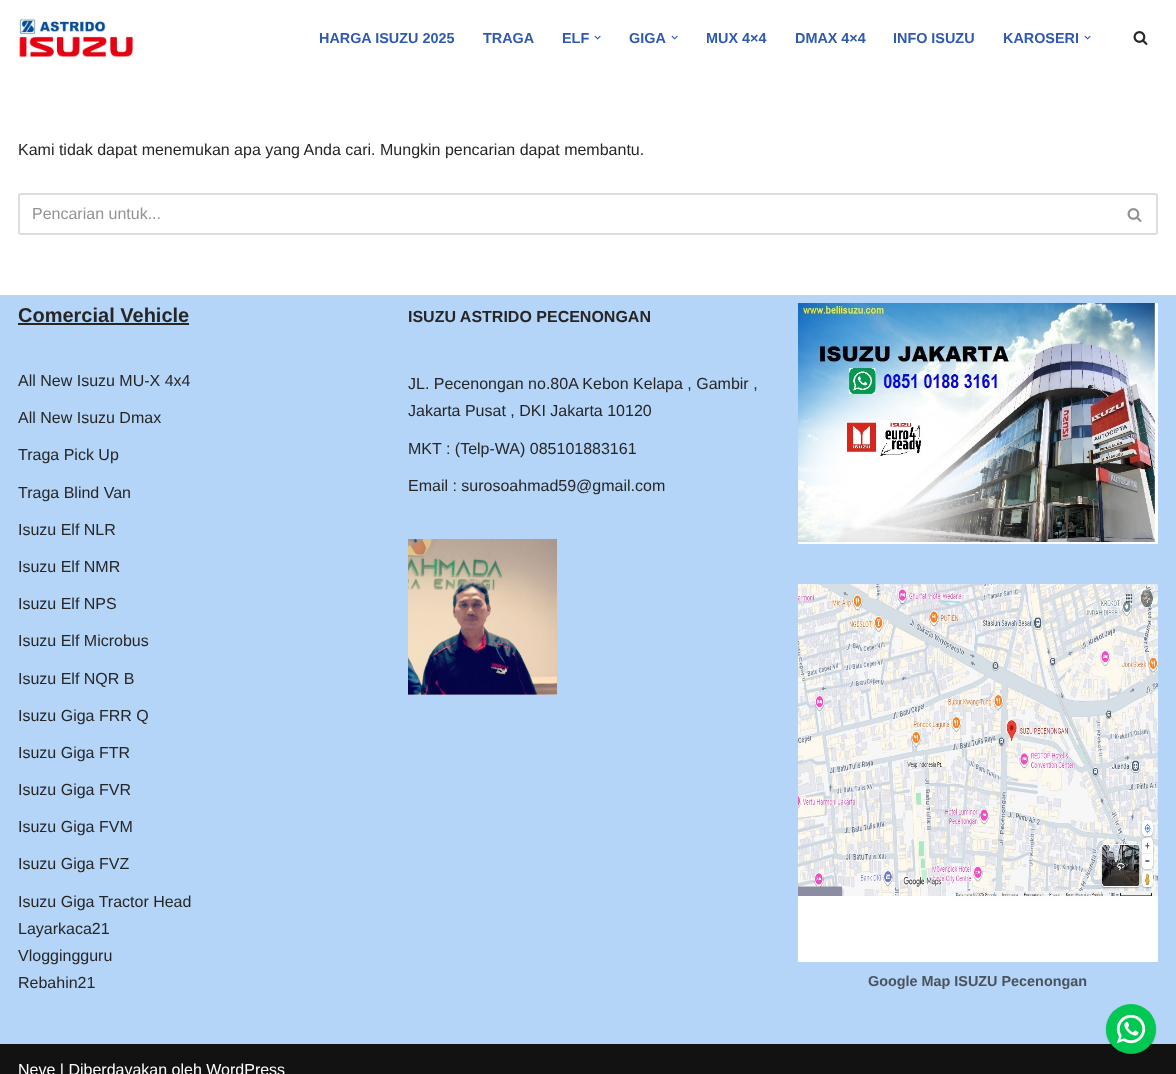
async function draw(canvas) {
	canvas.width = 1176;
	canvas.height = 1074;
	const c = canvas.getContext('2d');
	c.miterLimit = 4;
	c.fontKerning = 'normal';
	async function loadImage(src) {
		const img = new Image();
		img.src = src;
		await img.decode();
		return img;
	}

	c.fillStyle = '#fff';
	c.fillRect(0, 0, 1176, 1074);
	c.drawImage(await loadImage('img1.png'), 18, 18, 116, 40);
	c.font = 'bold 14.4px Liberation Sans';
	c.fillStyle = '#2f5aae';
	for (const [text, x, y] of [
		['HARGA ISUZU 2025', 319, 43],
		['TRAGA', 483, 43],
		['ELF', 562, 43],
	]) {
		c.fillText(text, x, y);
	}
	c.drawImage(await loadImage('img2.png'), 594, 35, 7, 5);
	c.fillText('GIGA', 629, 43);
	c.drawImage(await loadImage('img2.png'), 671, 35, 7, 5);
	for (const [text, x, y] of [
		['MUX 4×4', 706, 43],
		['DMAX 4×4', 795, 43],
		['INFO ISUZU', 893, 43],
		['KAROSERI', 1003, 43],
	]) {
		c.fillText(text, x, y);
	}
	c.drawImage(await loadImage('img2.png'), 1084, 35, 7, 5);
	c.drawImage(await loadImage('img3.png'), 1133, 31, 15, 14);
	c.font = '16px Liberation Sans';
	c.fillStyle = '#272626';
	c.fillText('Kami tidak dapat menemukan apa yang Anda cari. Mungkin pencarian dapat membantu.', 18, 155);
	c.fillStyle = '#ddd';
	c.beginPath();
	c.moveTo(21, 193);
	c.lineTo(1113, 193);
	c.lineTo(1113, 235);
	c.lineTo(21, 235);
	c.bezierCurveTo(19, 235, 18, 234, 18, 232);
	c.lineTo(18, 196);
	c.bezierCurveTo(18, 194, 19, 193, 21, 193);
	c.closePath();
	c.moveTo(21, 195);
	c.lineTo(1113, 195);
	c.lineTo(1113, 233);
	c.lineTo(21, 233);
	c.bezierCurveTo(20, 233, 20, 233, 20, 232);
	c.lineTo(20, 196);
	c.bezierCurveTo(20, 195, 20, 195, 21, 195);
	c.closePath();
	c.fill('evenodd');
	c.fillStyle = '#939393';
	c.fillText('Pencarian untuk...', 32, 219);
	c.fillStyle = '#ddd';
	c.beginPath();
	c.moveTo(1113, 193);
	c.lineTo(1155, 193);
	c.bezierCurveTo(1157, 193, 1158, 194, 1158, 196);
	c.lineTo(1158, 232);
	c.bezierCurveTo(1158, 234, 1157, 235, 1155, 235);
	c.lineTo(1113, 235);
	c.closePath();
	c.moveTo(1113, 195);
	c.lineTo(1155, 195);
	c.bezierCurveTo(1156, 195, 1156, 195, 1156, 196);
	c.lineTo(1156, 232);
	c.bezierCurveTo(1156, 233, 1156, 233, 1155, 233);
	c.lineTo(1113, 233);
	c.closePath();
	c.fill('evenodd');
	c.drawImage(await loadImage('img4.png'), 1127, 208, 15, 14);
	c.fillStyle = '#b4d5f8';
	c.fillRect(0, 295, 1176, 749);
	c.font = 'bold 20px Liberation Sans';
	c.fillStyle = '#272626';
	c.fillText('Comercial Vehicle', 18, 322);
	c.fillRect(18, 323, 171, 2);
	c.font = '16px Liberation Sans';
	for (const [text, x, y] of [
		['All New Isuzu MU-X 4x4', 18, 386],
		['All New Isuzu Dmax', 18, 423],
		['Traga Pick Up', 18, 460],
		['Traga Blind Van', 18, 498],
		['Isuzu Elf NLR', 18, 535],
		['Isuzu Elf NMR', 18, 572],
		['Isuzu Elf NPS', 18, 609],
		['Isuzu Elf Microbus', 18, 646],
		['Isuzu Elf NQR B', 18, 684],
		['Isuzu Giga FRR Q', 18, 721],
		['Isuzu Giga FTR', 18, 758],
		['Isuzu Giga FVR', 18, 795],
		['Isuzu Giga FVM', 18, 832],
		['Isuzu Giga FVZ', 18, 869],
		['Isuzu Giga Tractor Head', 18, 907],
		['Layarkaca21', 18, 934],
		['Vloggingguru', 18, 961],
		['Rebahin21', 18, 988],
	]) {
		c.fillText(text, x, y);
	}
	c.fillStyle = '#121212';
	c.fillRect(0, 1044, 1176, 30);
	c.fillStyle = '#0000003d';
	c.filter = 'blur(0.5px)';
	c.beginPath();
	c.roundRect(1106, 1005, 50, 50, 25);
	c.fill();
	c.filter = 'none';
	c.fillStyle = '#0000001f';
	c.filter = 'blur(1px)';
	c.beginPath();
	c.roundRect(1106, 1005, 50, 50, 25);
	c.fill();
	c.filter = 'none';
	c.fillStyle = '#00c853';
	c.beginPath();
	c.arc(1131, 1029, 25, 0, 2 * Math.PI);
	c.fill();
	c.drawImage(await loadImage('img5.png'), 1116, 1014, 30, 30);
	c.font = 'bold 16px Liberation Sans';
	c.fillStyle = '#272626';
	c.fillText('ISUZU ASTRIDO PECENONGAN', 408, 322);
	c.font = '16px Liberation Sans';
	for (const [text, x, y] of [
		['JL. Pecenongan no.80A Kebon Kelapa , Gambir ,', 408, 389],
		['Jakarta Pusat , DKI Jakarta 10120', 408, 416],
		['MKT : (Telp-WA) 085101883161', 408, 454],
		['Email : surosoahmad59@gmail.com', 408, 491],
	]) {
		c.fillText(text, x, y);
	}
	c.drawImage(await loadImage('img6.png'), 408, 539, 149, 156);
	c.drawImage(await loadImage('img7.png'), 798, 303, 360, 241);
	c.drawImage(await loadImage('img8.png'), 798, 584, 360, 378);
	c.font = 'bold 14.4px Liberation Sans';
	c.fillStyle = '#4a525b';
	c.fillText('Google Map ISUZU Pecenongan', 868, 986);
	c.font = '16px Liberation Sans';
	c.fillStyle = '#fff';
	c.fillText('Neve | Diberdayakan oleh WordPress', 18, 1075);
}

draw(document.querySelector('canvas'));
